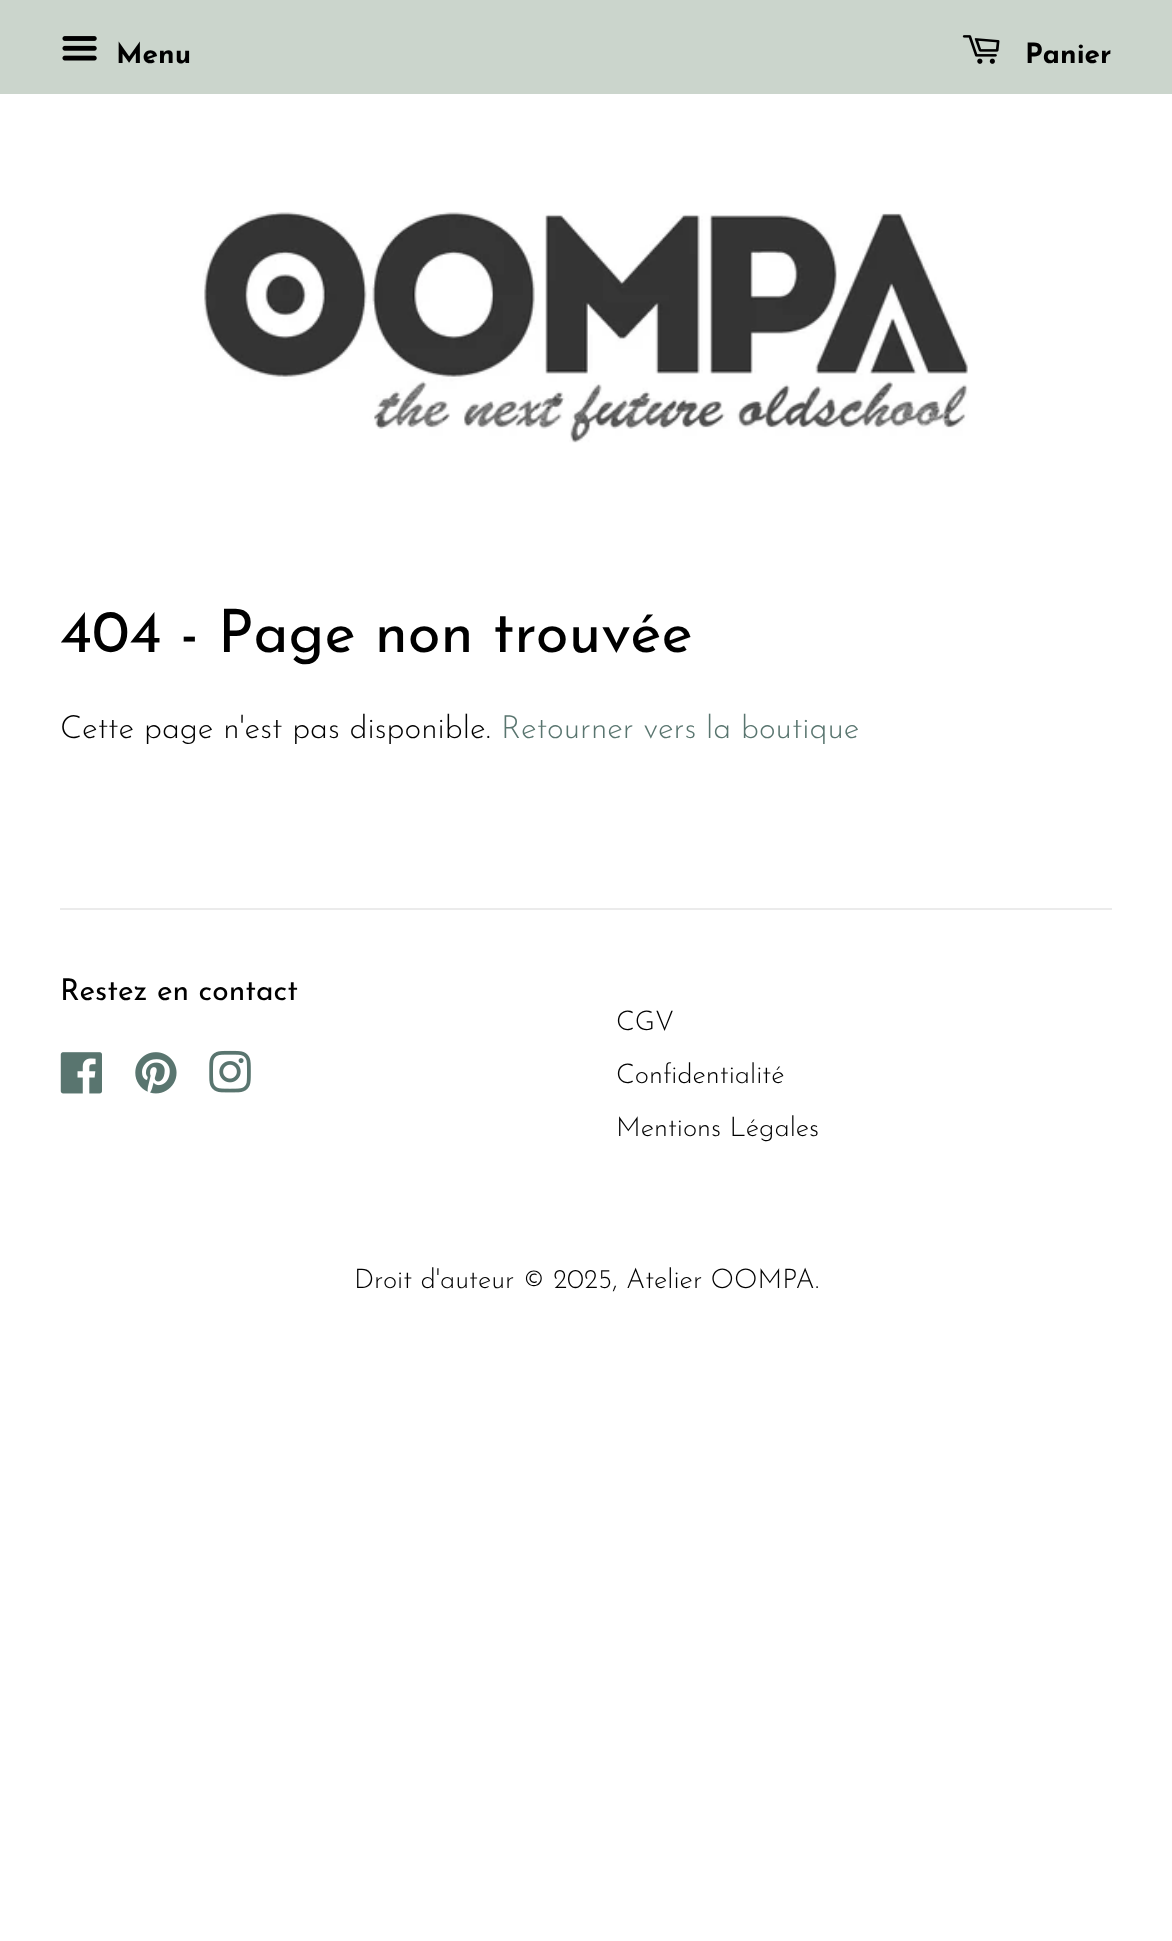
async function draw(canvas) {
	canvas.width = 1172;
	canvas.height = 1941;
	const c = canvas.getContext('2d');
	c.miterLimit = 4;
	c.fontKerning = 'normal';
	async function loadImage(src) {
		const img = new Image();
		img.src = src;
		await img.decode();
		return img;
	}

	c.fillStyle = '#fff';
	c.fillRect(0, 0, 1172, 1941);
	c.fillStyle = '#cbd5cc';
	c.fillRect(0, 0, 1172, 94);
	c.drawImage(await loadImage('img1.png'), 62, 36, 35, 25);
	c.font = 'bold 28px Josefin Sans';
	c.fillStyle = '#000';
	c.fillText('Menu', 116, 63);
	c.drawImage(await loadImage('img2.png'), 962, 35, 38, 29);
	c.fillText('Panier', 1025, 63);
	c.drawImage(await loadImage('img3.png'), 203, 211, 766, 232);
	c.font = '60px Josefin Sans';
	c.fillText('404 - Page non trouvée', 60, 652);
	c.font = '300 32px Josefin Sans';
	c.fillText('Cette page n\'est pas disponible.', 60, 738);
	c.fillStyle = '#59756f';
	c.fillText('Retourner vers la boutique', 501, 738);
	c.fillStyle = '#ebebeb';
	c.fillRect(60, 908, 1052, 2);
	c.font = '30px Josefin Sans';
	c.fillStyle = '#000';
	c.fillText('Restez en contact', 60, 1000);
	c.drawImage(await loadImage('img4.png'), 60, 1052, 42, 42);
	c.drawImage(await loadImage('img5.png'), 135, 1052, 42, 42);
	c.drawImage(await loadImage('img6.png'), 209, 1050, 42, 43);
	c.font = '300 27.25px Josefin Sans';
	for (const [text, x, y] of [
		['CGV', 616, 1030],
		['Confidentialité', 616, 1083],
		['Mentions Légales', 616, 1136],
		['Droit d\'auteur © 2025, Atelier OOMPA.', 354, 1288],
	]) {
		c.fillText(text, x, y);
	}
}

draw(document.querySelector('canvas'));
